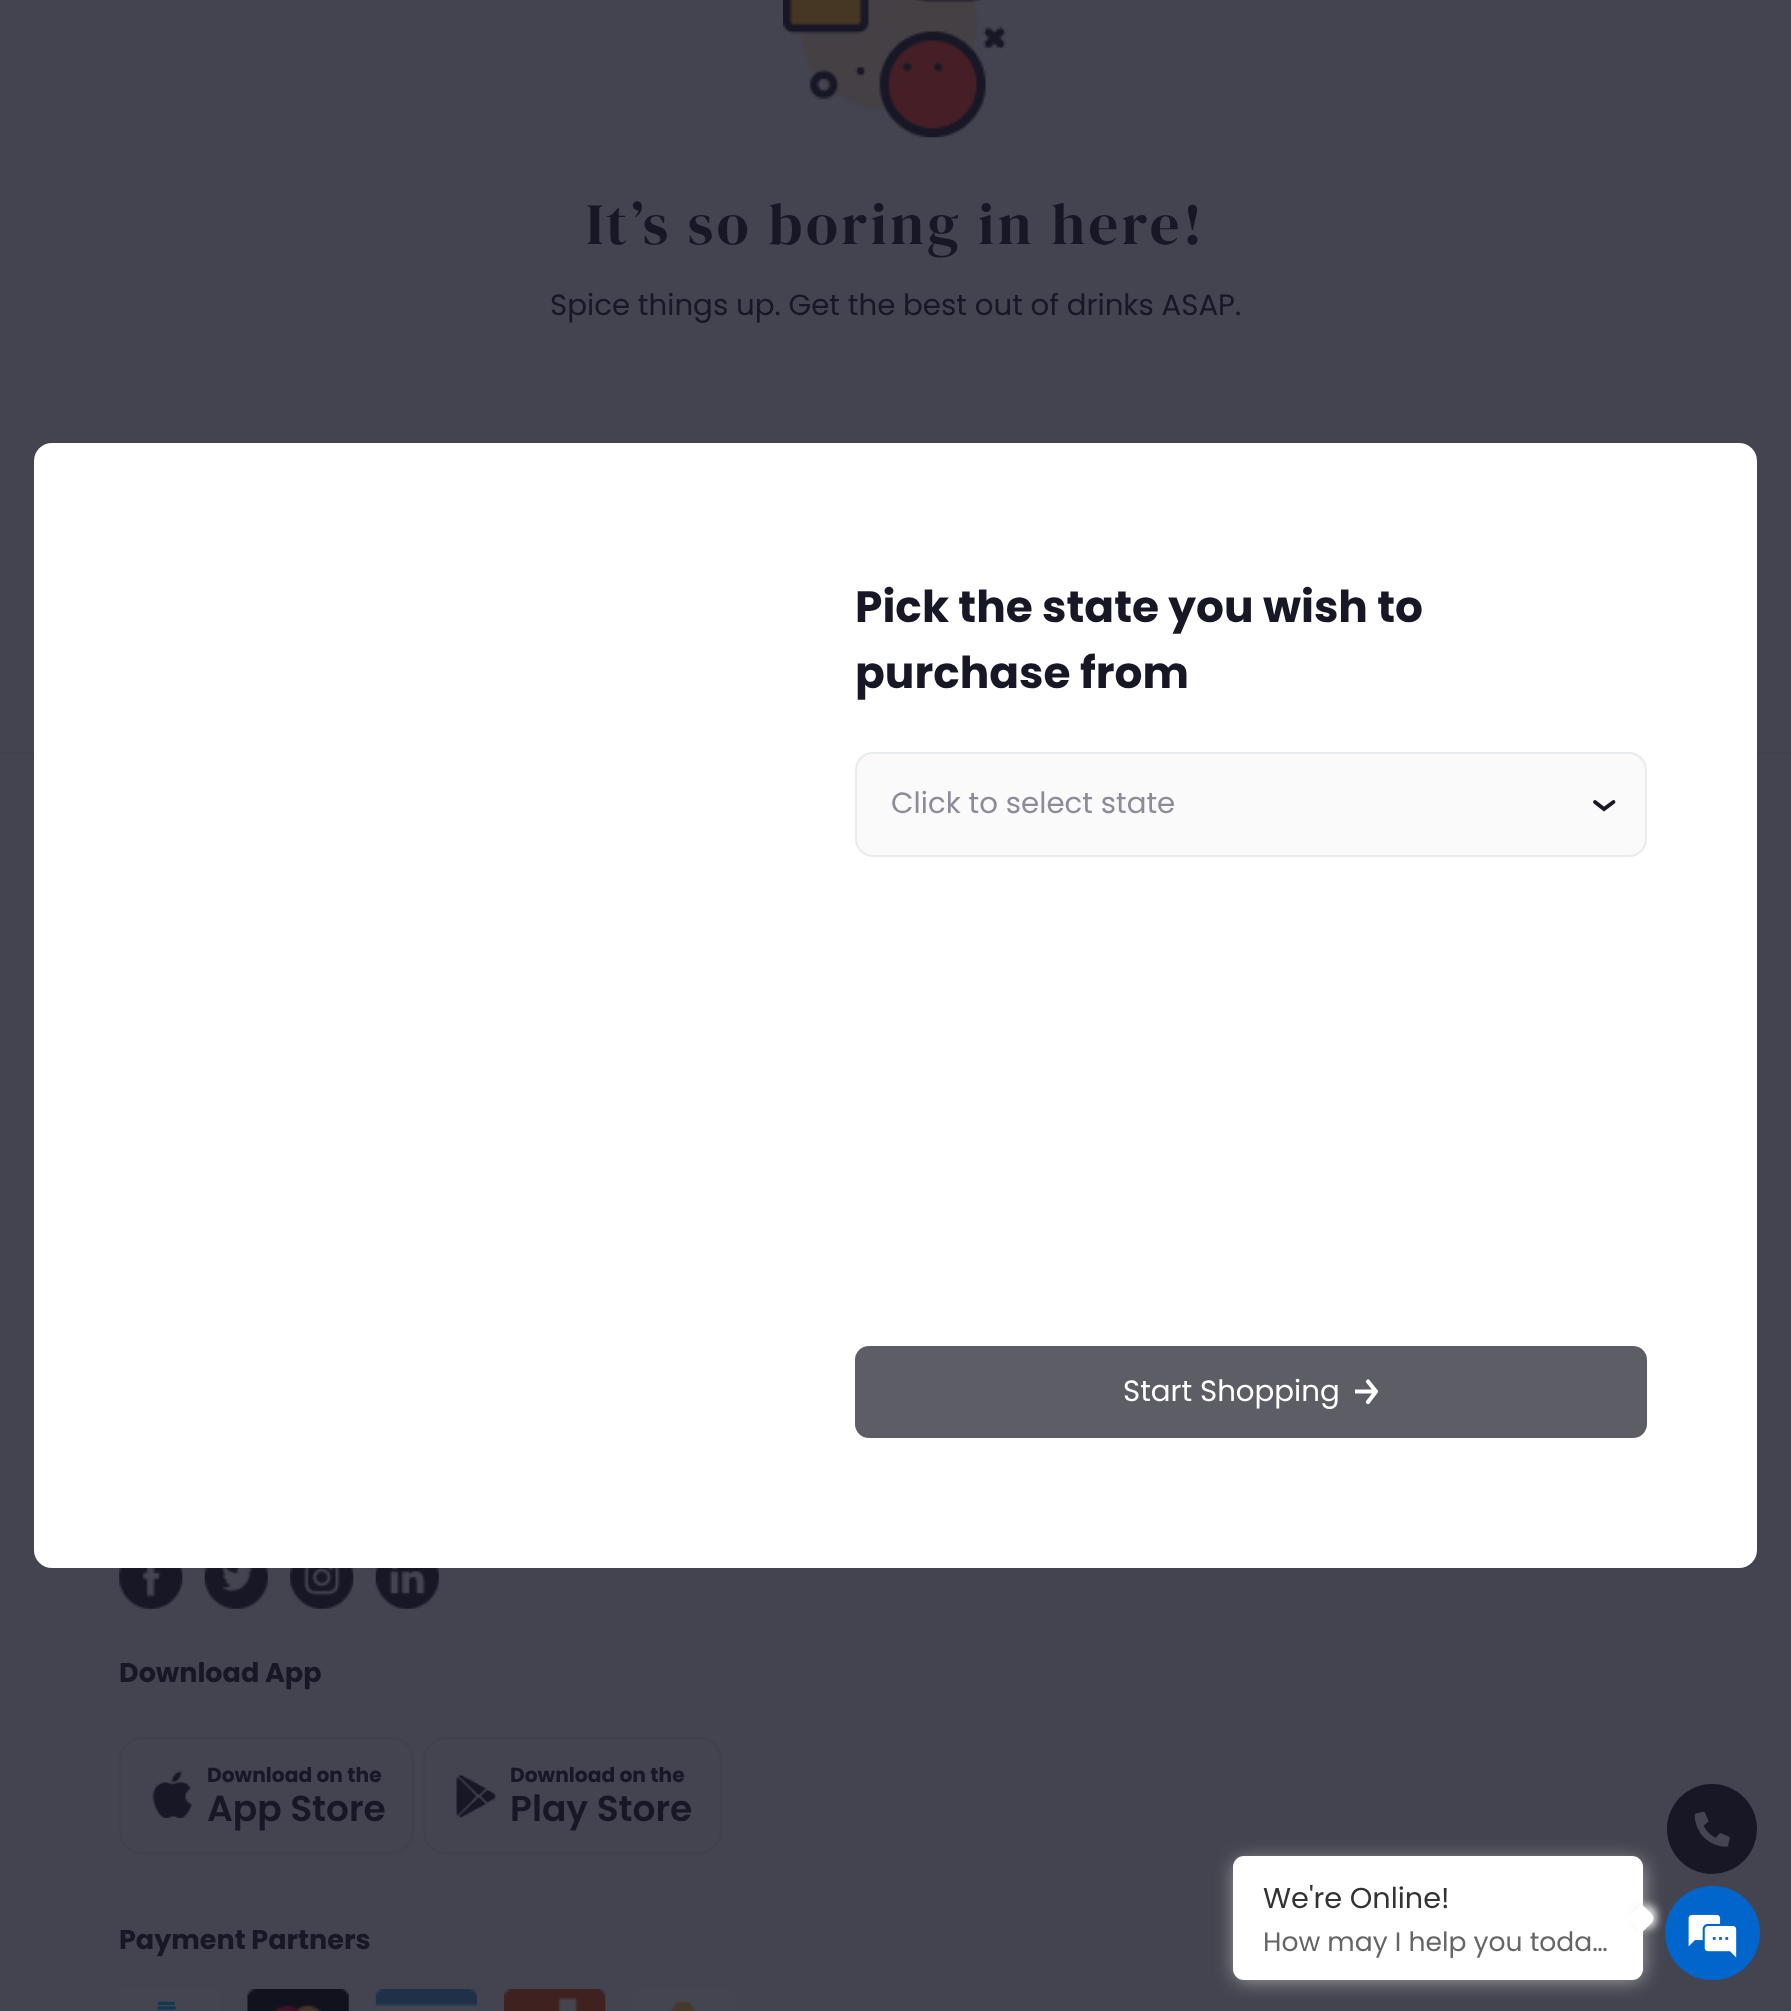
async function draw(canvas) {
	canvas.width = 1791;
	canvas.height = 2011;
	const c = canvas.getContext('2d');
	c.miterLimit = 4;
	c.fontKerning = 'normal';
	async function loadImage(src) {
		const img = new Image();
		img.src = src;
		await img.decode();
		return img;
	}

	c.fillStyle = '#444450';
	c.fillRect(0, 0, 1791, 2011);
	c.drawImage(await loadImage('img1.png'), 783, 0, 224, 138);
	c.letterSpacing = '3.4px';
	c.font = '58.5px DM Serif Display';
	c.fillStyle = '#171725';
	c.fillText('It’s so boring in here!', 586, 244);
	c.letterSpacing = '0px';
	c.font = '29.25px Poppins';
	c.fillText('Spice things up. Get the best out of drinks ASAP.', 550, 315);
	c.fillStyle = '#41414d';
	c.fillRect(0, 752, 1791, 2);
	c.fillStyle = '#fff';
	c.beginPath();
	c.roundRect(34, 443, 1723, 1125, 18);
	c.fill();
	c.font = 'bold 43.9px Poppins';
	c.fillStyle = '#171725';
	c.fillText('Pick the state you wish to', 855, 622);
	c.fillText('purchase from', 855, 688);
	c.fillStyle = '#fafafb';
	c.beginPath();
	c.roundRect(856, 753, 790, 103, 17);
	c.fill();
	c.strokeStyle = '#e9ecee';
	c.lineWidth = 2;
	c.stroke();
	c.font = '29.25px Poppins';
	c.fillStyle = '#8b8b9a';
	c.fillText('Click to select state', 891, 813);
	c.beginPath();
	c.moveTo(1595, 802);
	c.lineTo(1604, 809);
	c.lineTo(1613.5, 802);
	c.strokeStyle = '#171725';
	c.lineWidth = 3.8;
	c.lineCap = 'round';
	c.stroke();
	c.fillStyle = '#5d5d66';
	c.beginPath();
	c.roundRect(855, 1346, 792, 92, 14);
	c.fill();
	c.fillStyle = '#fff';
	c.fillText('Start Shopping', 1123, 1401);
	c.save();
	c.beginPath();
	c.rect(1355, 1379, 24, 25);
	c.clip();
	c.beginPath();
	c.moveTo(1368, 1402);
	c.lineTo(1376, 1391.5);
	c.moveTo(1376, 1391.5);
	c.lineTo(1368, 1381.5);
	c.moveTo(1376, 1391.5);
	c.lineTo(1355.5, 1391.5);
	c.strokeStyle = '#fff';
	c.lineWidth = 4.1;
	c.stroke();
	c.restore();
	c.drawImage(await loadImage('img2.png'), 119, 1568, 64, 41);
	c.drawImage(await loadImage('img3.png'), 204, 1568, 64, 41);
	c.drawImage(await loadImage('img4.png'), 290, 1568, 64, 41);
	c.drawImage(await loadImage('img5.png'), 375, 1568, 64, 41);
	c.font = 'bold 27px Poppins';
	c.fillStyle = '#171725';
	c.fillText('Download App', 119, 1682);
	c.beginPath();
	c.roundRect(120, 1738, 293, 115, 22);
	c.strokeStyle = '#41414d';
	c.lineWidth = 2;
	c.stroke();
	c.drawImage(await loadImage('img6.png'), 152, 1770, 40, 48);
	c.font = 'bold 20.25px Poppins';
	c.fillText('Download on the', 207, 1782);
	c.font = '600 36px Poppins';
	c.fillText('App Store', 207, 1821);
	c.beginPath();
	c.roundRect(424, 1738, 297, 115, 22);
	c.stroke();
	c.drawImage(await loadImage('img7.png'), 456, 1774, 40, 44);
	c.font = 'bold 20.25px Poppins';
	c.fillText('Download on the', 510, 1782);
	c.font = '600 36px Poppins';
	c.fillText('Play Store', 510, 1821);
	c.font = 'bold 27px Poppins';
	c.fillText('Payment Partners', 119, 1949);
	c.drawImage(await loadImage('img8.png'), 119, 1989, 102, 22);
	c.drawImage(await loadImage('img9.png'), 247, 1989, 102, 22);
	c.drawImage(await loadImage('img10.png'), 375, 1989, 102, 22);
	c.drawImage(await loadImage('img11.png'), 504, 1989, 102, 22);
	c.drawImage(await loadImage('img12.png'), 632, 1989, 102, 22);
	c.beginPath();
	c.arc(1712, 1829, 45, 0, 2 * Math.PI);
	c.fill();
	c.drawImage(await loadImage('img13.png'), 1694, 1811, 36, 36);
	c.fillStyle = '#aaa';
	c.filter = 'blur(10px)';
	c.beginPath();
	c.roundRect(1235, 1861, 408, 119, 9);
	c.fill();
	c.filter = 'none';
	c.fillStyle = '#fff';
	c.beginPath();
	c.roundRect(1233, 1856, 410, 124, 11);
	c.fill();
	c.fillStyle = '#eee';
	c.filter = 'blur(4px)';
	c.beginPath();
	c.roundRect(1634, 1906, 22, 22, 7);
	c.fill();
	c.filter = 'none';
	c.fillStyle = '#06c';
	c.beginPath();
	c.roundRect(1665, 1886, 95, 94, 47);
	c.fill();
	c.font = '28.75px Poppins';
	c.fillStyle = '#333';
	c.fillText('We\'re Online!', 1263, 1908);
	c.fillStyle = '#fff';
	c.beginPath();
	c.moveTo(1641.5, 1904);
	c.lineTo(1651.5, 1914);
	c.bezierCurveTo(1654, 1916.5, 1654, 1920.5, 1651.5, 1923);
	c.lineTo(1641.5, 1933);
	c.lineTo(1627, 1918.5);
	c.closePath();
	c.fill();
	c.font = '26.6px Poppins';
	c.fillStyle = '#666';
	c.fillText('How may I help you toda…', 1263, 1951);
	c.drawImage(await loadImage('img14.png'), 1688, 1914, 49, 44);
}

draw(document.querySelector('canvas'));
